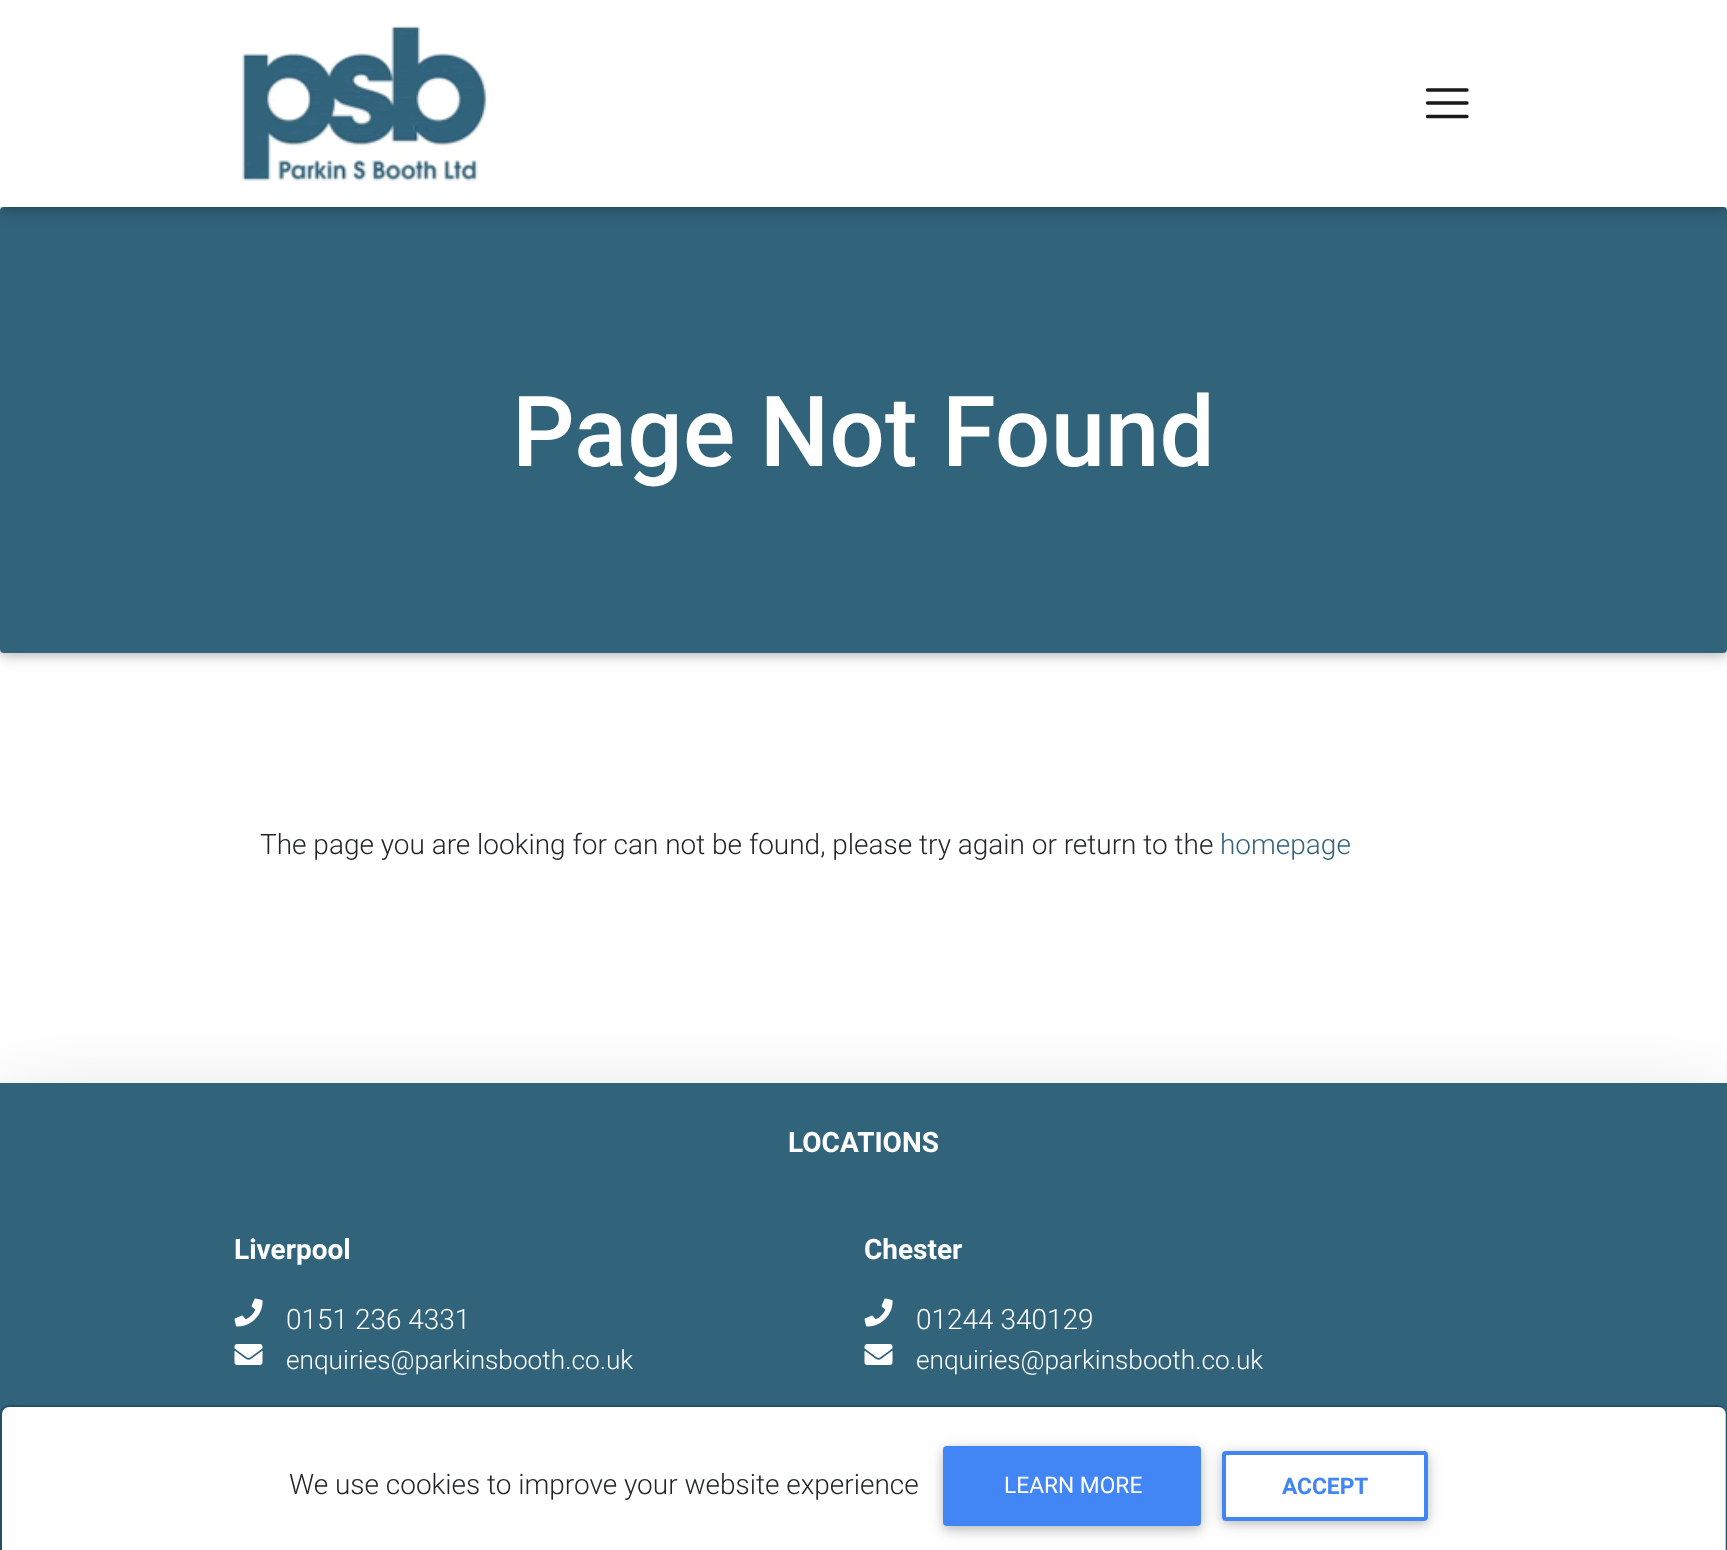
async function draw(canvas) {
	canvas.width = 1727;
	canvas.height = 1550;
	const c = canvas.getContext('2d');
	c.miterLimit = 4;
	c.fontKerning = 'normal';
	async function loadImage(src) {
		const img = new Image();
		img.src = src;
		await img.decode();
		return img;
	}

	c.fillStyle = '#fff';
	c.fillRect(0, 0, 1727, 1550);
	c.fillStyle = '#0000001f';
	c.filter = 'blur(9px)';
	c.beginPath();
	c.roundRect(0, 210, 1727, 446, 4);
	c.fill();
	c.filter = 'none';
	c.fillStyle = '#00000029';
	c.filter = 'blur(4.5px)';
	c.beginPath();
	c.roundRect(0, 210, 1727, 446, 4);
	c.fill();
	c.filter = 'none';
	c.fillStyle = '#31637b';
	c.beginPath();
	c.roundRect(0, 207, 1727, 446, 4);
	c.fill();
	c.fillStyle = '#0000001f';
	c.filter = 'blur(9px)';
	c.beginPath();
	c.rect(0, 4, 1727, 206);
	c.fill();
	c.filter = 'none';
	c.fillStyle = '#00000029';
	c.filter = 'blur(4.5px)';
	c.beginPath();
	c.rect(0, 4, 1727, 206);
	c.fill();
	c.filter = 'none';
	c.fillStyle = '#fff';
	c.fillRect(0, 0, 1727, 207);
	c.drawImage(await loadImage('img1.png'), 242, 23, 246, 158);
	c.beginPath();
	c.moveTo(1427.5, 90);
	c.lineTo(1467, 90);
	c.moveTo(1427.5, 103);
	c.lineTo(1467, 103);
	c.moveTo(1427.5, 116.5);
	c.lineTo(1467, 116.5);
	c.strokeStyle = '#1a1a1a';
	c.lineWidth = 3.3;
	c.lineCap = 'round';
	c.stroke();
	c.font = '500 98px Roboto';
	c.fillText('Page Not Found', 512, 466);
	c.font = '300 28px Roboto';
	c.fillStyle = '#212529';
	c.fillText('The page you are looking for can not be found, please try again or return to the', 260, 854);
	c.fillStyle = '#31637b';
	c.fillText('homepage', 1220, 854);
	c.fillStyle = '#00000030';
	c.filter = 'blur(44px)';
	c.beginPath();
	c.rect(0, 1113, 1727, 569);
	c.fill();
	c.filter = 'none';
	c.fillStyle = '#31637b';
	c.fillRect(0, 1083, 1727, 467);
	c.font = 'bold 28px Roboto';
	c.fillStyle = '#fff';
	c.fillText('LOCATIONS', 788, 1152);
	c.fillText('Liverpool', 234, 1259);
	c.drawImage(await loadImage('img2.png'), 234, 1298, 29, 29);
	c.font = '300 28px Roboto';
	c.fillText('0151 236 4331', 286, 1329);
	c.drawImage(await loadImage('img3.png'), 234, 1344, 29, 21);
	c.font = '300 26.25px Roboto';
	c.fillText('enquiries@parkinsbooth.co.uk', 286, 1369);
	c.font = 'bold 28px Roboto';
	c.fillText('Chester', 864, 1259);
	c.drawImage(await loadImage('img2.png'), 864, 1298, 29, 29);
	c.font = '300 28px Roboto';
	c.fillText('01244 340129', 916, 1329);
	c.drawImage(await loadImage('img3.png'), 864, 1344, 29, 21);
	c.font = '300 26.25px Roboto';
	c.fillText('enquiries@parkinsbooth.co.uk', 916, 1369);
	c.beginPath();
	c.roundRect(2, 1407, 1724, 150, 7);
	c.fill();
	c.beginPath();
	c.roundRect(1, 1406, 1725, 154, 8);
	c.strokeStyle = '#00000033';
	c.lineWidth = 2;
	c.stroke();
	c.font = '300 28px Roboto';
	c.fillStyle = '#212529';
	c.fillText('We use cookies to improve your website experience', 289, 1494);
	c.fillStyle = '#0000001f';
	c.filter = 'blur(9px)';
	c.beginPath();
	c.roundRect(943, 1449, 258, 81, 4);
	c.fill();
	c.filter = 'none';
	c.fillStyle = '#00000029';
	c.filter = 'blur(4.5px)';
	c.beginPath();
	c.roundRect(943, 1449, 258, 81, 4);
	c.fill();
	c.filter = 'none';
	c.fillStyle = '#4285f4';
	c.beginPath();
	c.roundRect(943, 1446, 258, 80, 4);
	c.fill();
	c.font = '22.75px Roboto';
	c.fillStyle = '#fff';
	c.fillText('LEARN MORE', 1004, 1493);
	c.save();
	c.beginPath();
	c.moveTo(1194, 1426);
	c.lineTo(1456, 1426);
	c.lineTo(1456, 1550);
	c.lineTo(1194, 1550);
	c.closePath();
	c.moveTo(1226, 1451);
	c.lineTo(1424, 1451);
	c.bezierCurveTo(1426, 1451, 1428, 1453, 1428, 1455);
	c.lineTo(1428, 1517);
	c.bezierCurveTo(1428, 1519, 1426, 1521, 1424, 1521);
	c.lineTo(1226, 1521);
	c.bezierCurveTo(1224, 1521, 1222, 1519, 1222, 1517);
	c.lineTo(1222, 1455);
	c.bezierCurveTo(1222, 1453, 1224, 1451, 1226, 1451);
	c.closePath();
	c.clip('evenodd');
	c.fillStyle = '#0000001f';
	c.filter = 'blur(9px)';
	c.beginPath();
	c.roundRect(1222, 1454, 206, 70, 4);
	c.fill();
	c.filter = 'none';
	c.restore();
	c.save();
	c.beginPath();
	c.moveTo(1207, 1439);
	c.lineTo(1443, 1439);
	c.lineTo(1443, 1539);
	c.lineTo(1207, 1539);
	c.closePath();
	c.moveTo(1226, 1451);
	c.lineTo(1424, 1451);
	c.bezierCurveTo(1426, 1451, 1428, 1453, 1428, 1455);
	c.lineTo(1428, 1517);
	c.bezierCurveTo(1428, 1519, 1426, 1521, 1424, 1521);
	c.lineTo(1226, 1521);
	c.bezierCurveTo(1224, 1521, 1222, 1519, 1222, 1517);
	c.lineTo(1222, 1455);
	c.bezierCurveTo(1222, 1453, 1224, 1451, 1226, 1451);
	c.closePath();
	c.clip('evenodd');
	c.fillStyle = '#00000029';
	c.filter = 'blur(4.5px)';
	c.beginPath();
	c.roundRect(1222, 1454, 206, 70, 4);
	c.fill();
	c.filter = 'none';
	c.restore();
	c.beginPath();
	c.roundRect(1224, 1453, 202, 66, 2);
	c.strokeStyle = '#4285f4';
	c.lineWidth = 4;
	c.stroke();
	c.font = 'bold 22.75px Roboto';
	c.fillStyle = '#4285f4';
	c.fillText('ACCEPT', 1282, 1494);
}

draw(document.querySelector('canvas'));
